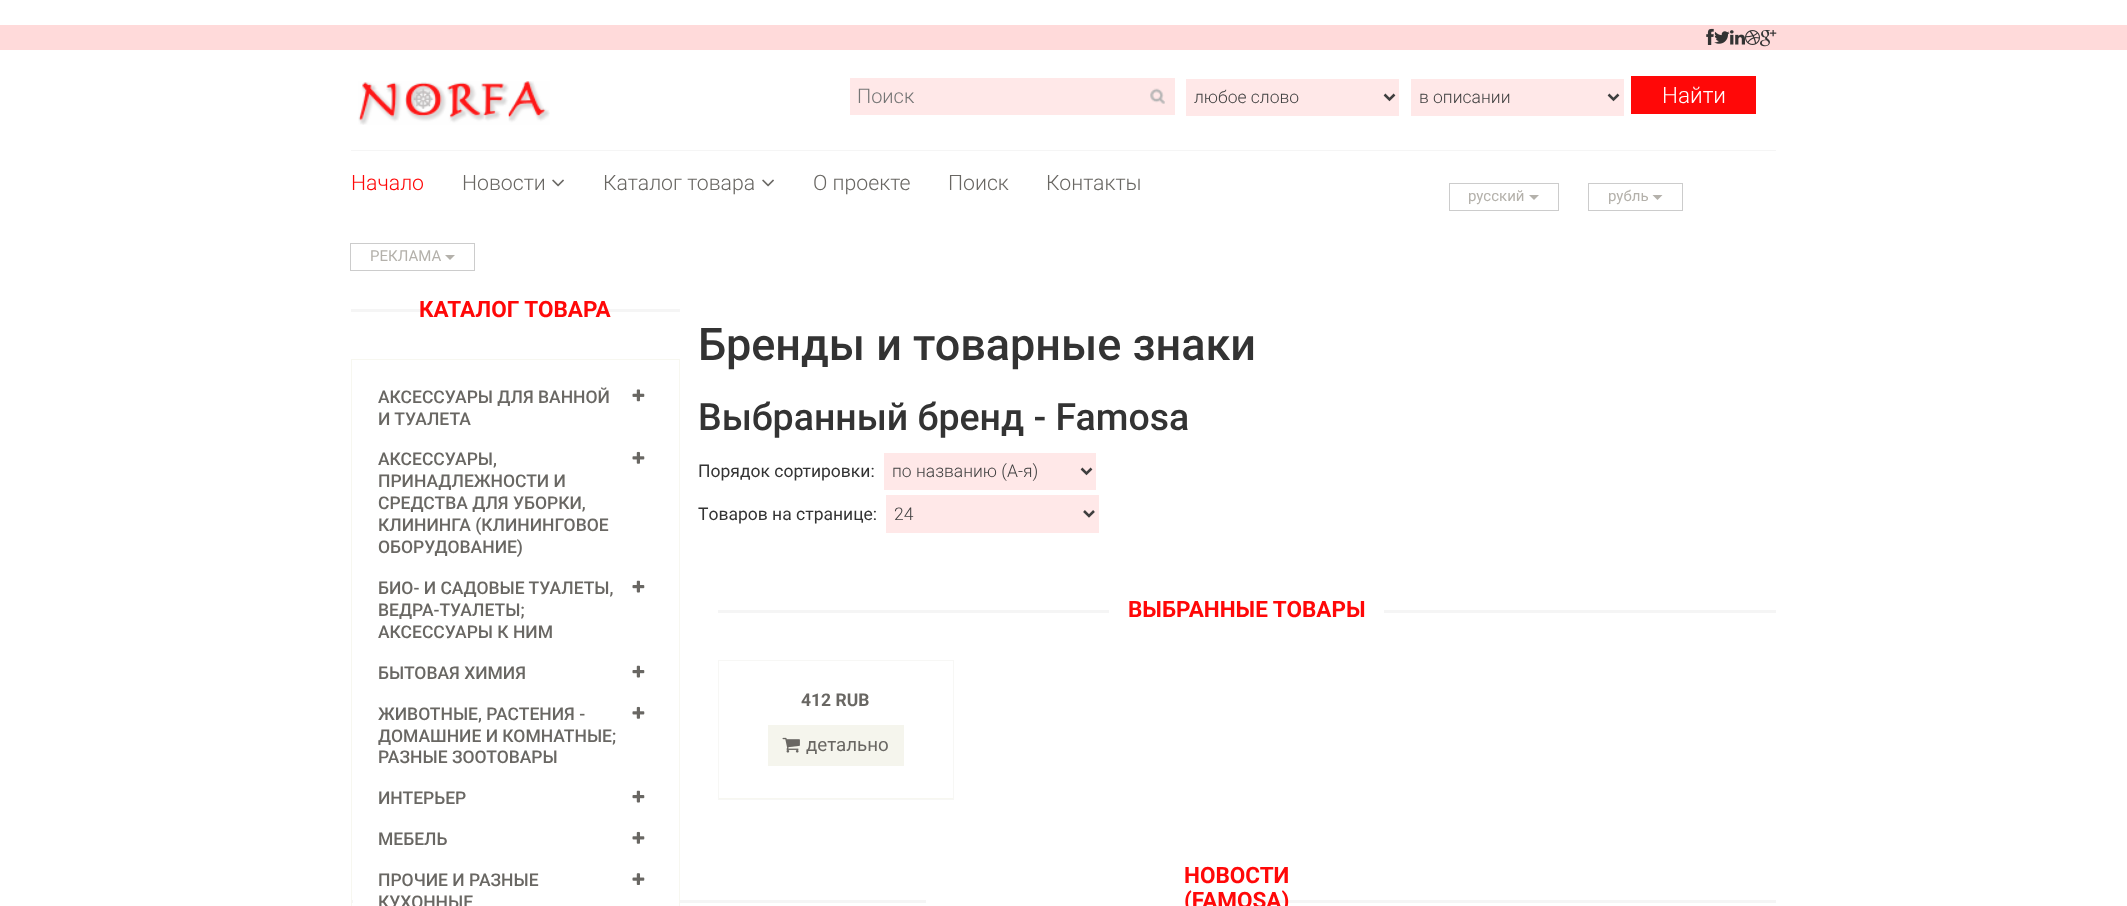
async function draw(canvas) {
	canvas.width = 2127;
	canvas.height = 906;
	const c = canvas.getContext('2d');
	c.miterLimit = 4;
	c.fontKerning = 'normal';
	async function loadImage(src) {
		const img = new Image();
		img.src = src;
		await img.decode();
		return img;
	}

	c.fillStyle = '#fff';
	c.fillRect(0, 0, 2127, 906);
	c.fillStyle = '#ffdada';
	c.fillRect(0, 25, 2127, 25);
	c.drawImage(await loadImage('img1.png'), 1706, 28, 8, 17);
	c.drawImage(await loadImage('img2.png'), 1714, 31, 16, 13);
	c.drawImage(await loadImage('img3.png'), 1730, 30, 15, 15);
	c.drawImage(await loadImage('img4.png'), 1745, 30, 15, 15);
	c.drawImage(await loadImage('img5.png'), 1760, 30, 17, 17);
	c.fillStyle = '#f5f5f5';
	c.fillRect(351, 150, 1425, 1);
	c.drawImage(await loadImage('img6.png'), 358, 81, 192, 44);
	c.fillStyle = '#ffe8e8';
	c.fillRect(850, 78, 325, 37);
	c.drawImage(await loadImage('img7.png'), 1150, 88, 15, 16);
	c.font = '300 20px Roboto';
	c.fillStyle = '#757575';
	c.fillText('Поиск', 857, 103);
	c.fillStyle = '#ffe8e8';
	c.fillRect(1186, 79, 213, 37);
	c.beginPath();
	c.moveTo(1384.5, 94.5);
	c.lineTo(1389.5, 99.5);
	c.lineTo(1394.5, 94.5);
	c.strokeStyle = '#3f3f3f';
	c.lineWidth = 2.5;
	c.stroke();
	c.font = '300 17.5px Roboto';
	c.fillStyle = '#3f3f3f';
	c.fillText('любое слово', 1194, 103);
	c.fillStyle = '#ffe8e8';
	c.fillRect(1411, 79, 213, 37);
	c.beginPath();
	c.moveTo(1608.5, 94.5);
	c.lineTo(1613.5, 99.5);
	c.lineTo(1618.5, 94.5);
	c.stroke();
	c.fillStyle = '#3f3f3f';
	c.fillText('в описании', 1419, 103);
	c.fillStyle = '#ff0808';
	c.fillRect(1631, 76, 125, 38);
	c.font = '300 22.5px Roboto';
	c.fillStyle = '#fff';
	c.fillText('Найти', 1662, 103);
	c.font = '300 21.25px Roboto';
	c.fillStyle = '#ff0808';
	c.fillText('Начало', 351, 190);
	c.fillStyle = '#696763';
	c.fillText('Новости', 462, 190);
	c.drawImage(await loadImage('img8.png'), 552, 179, 12, 8);
	c.fillText('Каталог товара', 603, 190);
	c.drawImage(await loadImage('img8.png'), 762, 179, 12, 8);
	for (const [text, x, y] of [
		['О проекте', 813, 190],
		['Поиск', 948, 190],
		['Контакты', 1046, 190],
	]) {
		c.fillText(text, x, y);
	}
	c.strokeStyle = '#ccc';
	c.lineWidth = 1;
	c.strokeRect(1449.5, 183.5, 109, 27);
	c.font = '15px Roboto';
	c.fillStyle = '#b4b1ab';
	c.fillText('русский', 1468, 201);
	c.beginPath();
	c.moveTo(1529, 195);
	c.lineTo(1539, 195);
	c.lineTo(1534, 200);
	c.closePath();
	c.fill();
	c.strokeRect(1588.5, 183.5, 94, 27);
	c.fillText('рубль', 1608, 201);
	c.beginPath();
	c.moveTo(1652.5, 195);
	c.lineTo(1662.5, 195);
	c.lineTo(1657.5, 200);
	c.closePath();
	c.fill();
	c.strokeRect(350.5, 243.5, 124, 27);
	c.fillText('РЕКЛАМА', 370, 261);
	c.beginPath();
	c.moveTo(445, 255);
	c.lineTo(455, 255);
	c.lineTo(450, 260);
	c.closePath();
	c.fill();
	c.fillStyle = '#f5f5f5';
	c.fillRect(351, 309, 329, 3);
	c.fillStyle = '#fff';
	c.fillRect(434, 309, 162, 3);
	c.font = 'bold 22.5px Roboto';
	c.fillStyle = '#ff0808';
	c.fillText('КАТАЛОГ ТОВАРА', 419, 317);
	c.fillStyle = '#f5f5f5';
	c.fillRect(351, 900, 1425, 3);
	c.strokeStyle = '#f7f7f0';
	c.strokeRect(351.5, 359.5, 328, 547);
	c.font = '500 17.5px Roboto';
	c.fillStyle = '#696763';
	c.fillText('АКСЕССУАРЫ ДЛЯ ВАННОЙ', 378, 403);
	c.drawImage(await loadImage('img9.png'), 632, 389, 13, 13);
	c.fillText('И ТУАЛЕТА', 378, 425);
	c.fillText('АКСЕССУАРЫ,', 378, 465);
	c.drawImage(await loadImage('img10.png'), 632, 451, 13, 13);
	for (const [text, x, y] of [
		['ПРИНАДЛЕЖНОСТИ И', 378, 487],
		['СРЕДСТВА ДЛЯ УБОРКИ,', 378, 509],
		['КЛИНИНГА (КЛИНИНГОВОЕ', 378, 531],
		['ОБОРУДОВАНИЕ)', 378, 553],
		['БИО- И САДОВЫЕ ТУАЛЕТЫ,', 378, 594],
	]) {
		c.fillText(text, x, y);
	}
	c.drawImage(await loadImage('img11.png'), 632, 580, 13, 13);
	for (const [text, x, y] of [
		['ВЕДРА-ТУАЛЕТЫ;', 378, 616],
		['АКСЕССУАРЫ К НИМ', 378, 638],
		['БЫТОВАЯ ХИМИЯ', 378, 679],
	]) {
		c.fillText(text, x, y);
	}
	c.drawImage(await loadImage('img11.png'), 632, 665, 13, 13);
	c.fillText('ЖИВОТНЫЕ, РАСТЕНИЯ -', 378, 720);
	c.drawImage(await loadImage('img10.png'), 632, 706, 13, 13);
	for (const [text, x, y] of [
		['ДОМАШНИЕ И КОМНАТНЫЕ;', 378, 742],
		['РАЗНЫЕ ЗООТОВАРЫ', 378, 763],
		['ИНТЕРЬЕР', 378, 804],
	]) {
		c.fillText(text, x, y);
	}
	c.drawImage(await loadImage('img11.png'), 632, 790, 13, 13);
	c.fillText('МЕБЕЛЬ', 378, 845);
	c.drawImage(await loadImage('img10.png'), 632, 831, 13, 13);
	c.fillStyle = '#fff';
	c.fillRect(353, 900, 326, 3);
	c.fillStyle = '#696763';
	c.fillText('ПРОЧИЕ И РАЗНЫЕ', 378, 886);
	c.drawImage(await loadImage('img12.png'), 632, 873, 13, 12);
	c.fillText('КУХОННЫЕ', 378, 908);
	c.font = '500 45px Roboto';
	c.fillStyle = '#333';
	c.fillText('Бренды и товарные знаки', 698, 360);
	c.font = '500 37.5px Roboto';
	c.fillText('Выбранный бренд - Famosa', 698, 430);
	c.font = '17.5px Roboto';
	c.fillText('Порядок сортировки:', 698, 477);
	c.fillStyle = '#ffe8e8';
	c.fillRect(884, 453, 212, 37);
	c.beginPath();
	c.moveTo(1081.5, 468.5);
	c.lineTo(1086.5, 473.5);
	c.lineTo(1091.5, 468.5);
	c.strokeStyle = '#3f3f3f';
	c.lineWidth = 2.5;
	c.stroke();
	c.font = '300 17.5px Roboto';
	c.fillStyle = '#3f3f3f';
	c.fillText('по названию (A-я)', 892, 477);
	c.font = '17.5px Roboto';
	c.fillStyle = '#333';
	c.fillText('Tоваров на странице:', 698, 520);
	c.fillStyle = '#ffe8e8';
	c.fillRect(886, 495, 213, 38);
	c.beginPath();
	c.moveTo(1084, 511);
	c.lineTo(1089, 516);
	c.lineTo(1094, 511);
	c.stroke();
	c.font = '300 17.5px Roboto';
	c.fillStyle = '#3f3f3f';
	c.fillText('24', 894, 520);
	c.fillStyle = '#f5f5f5';
	c.fillRect(718, 610, 1058, 3);
	c.fillStyle = '#fff';
	c.fillRect(1109, 610, 275, 3);
	c.font = 'bold 22.5px Roboto';
	c.fillStyle = '#ff0808';
	c.fillText('ВЫБРАННЫЕ ТОВАРЫ', 1128, 617);
	c.strokeStyle = '#f7f7f5';
	c.lineWidth = 1;
	c.strokeRect(718.5, 660.5, 235, 139);
	c.font = 'bold 17.5px Roboto';
	c.fillStyle = '#696763';
	c.fillText('412 RUB', 801, 706);
	c.fillStyle = '#f5f5ed';
	c.fillRect(768, 725, 136, 41);
	c.drawImage(await loadImage('img13.png'), 782, 737, 18, 16);
	c.font = '18.75px Roboto';
	c.fillStyle = '#696763';
	c.fillText('детально', 806, 751);
	c.fillStyle = '#f7f7f0';
	c.fillRect(719, 798, 234, 1);
	c.font = 'bold 22.5px Roboto';
	c.fillStyle = '#ff0808';
	c.fillText('НОВОСТИ', 1184, 883);
	c.fillStyle = '#fff';
	c.fillRect(926, 900, 275, 3);
	c.fillStyle = '#ff0808';
	c.fillText('(FAMOSA)', 1184, 908);
}

draw(document.querySelector('canvas'));
